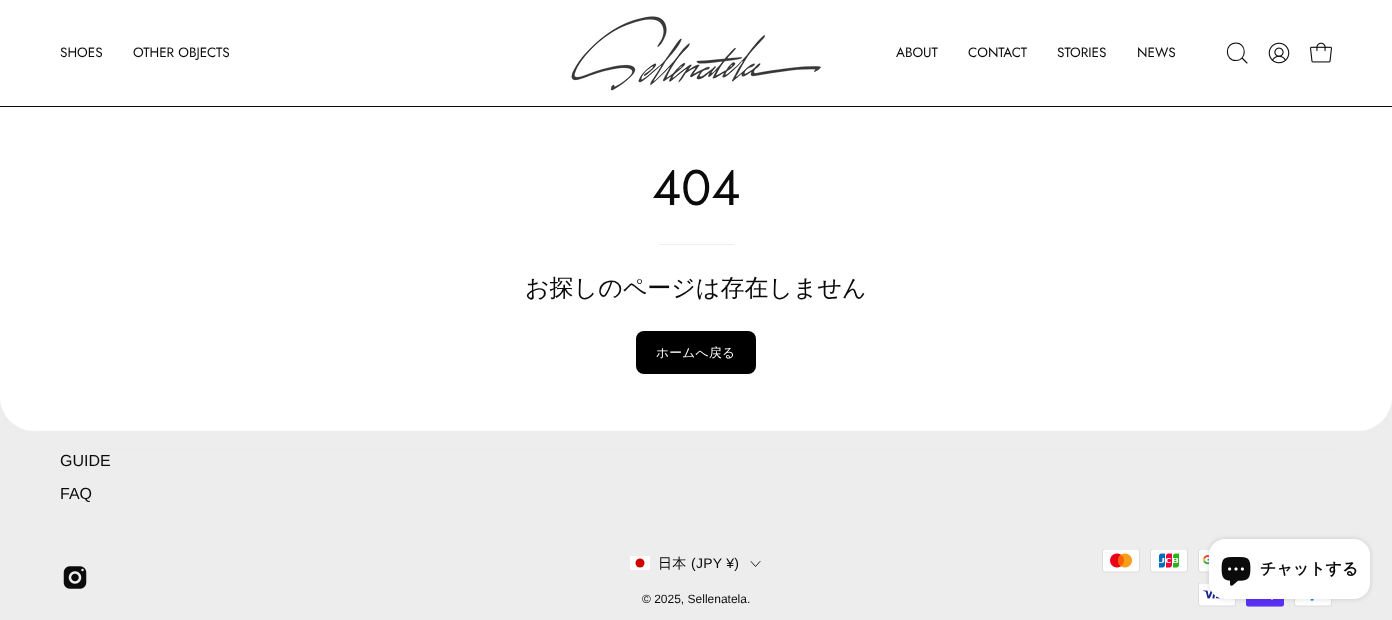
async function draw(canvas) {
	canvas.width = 1392;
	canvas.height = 620;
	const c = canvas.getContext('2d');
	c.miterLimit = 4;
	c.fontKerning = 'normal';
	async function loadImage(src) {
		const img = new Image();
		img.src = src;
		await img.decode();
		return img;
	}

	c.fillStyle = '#fff';
	c.fillRect(0, 0, 1392, 620);
	c.drawImage(await loadImage('img1.png'), 571, 16, 250, 75);
	c.font = '13.5px Jost';
	c.fillStyle = '#0b0b0b';
	for (const [text, x, y] of [
		['SHOES', 60, 57],
		['OTHER OBJECTS', 133, 57],
		['ABOUT', 896, 57],
		['CONTACT', 968, 57],
		['STORIES', 1057, 57],
		['NEWS', 1137, 57],
	]) {
		c.fillText(text, x, y);
	}
	c.beginPath();
	c.moveTo(1236, 60.5);
	c.bezierCurveTo(1247, 60.5, 1247, 43, 1236, 43);
	c.bezierCurveTo(1224.5, 43, 1224.5, 60.5, 1236, 60.5);
	c.closePath();
	c.moveTo(1242, 58);
	c.lineTo(1247, 63);
	c.strokeStyle = '#0d0d0d';
	c.lineWidth = 1.1;
	c.lineCap = 'round';
	c.lineJoin = 'round';
	c.stroke();
	c.drawImage(await loadImage('img2.png'), 1268, 42, 22, 22);
	c.drawImage(await loadImage('img3.png'), 1310, 42, 22, 21);
	c.fillStyle = '#ededed';
	c.fillRect(0, 397, 1392, 223);
	c.filter = 'blur(12.5px)';
	c.beginPath();
	c.roundRect(10, 141, 1372, 305, 24);
	c.fill();
	c.filter = 'none';
	c.fillStyle = '#fff';
	c.beginPath();
	c.roundRect(0, 106, 1392, 325, [0, 0, 34, 34]);
	c.fill();
	c.fillStyle = '#0d0d0d';
	c.fillRect(0, 106, 1392, 1);
	c.font = '50px Jost';
	c.fillStyle = '#0b0b0b';
	c.fillText('404', 652, 205);
	c.fillStyle = '#ededed';
	c.fillRect(659, 244, 75, 1);
	c.font = '500 24px WenQuanYi Zen Hei';
	c.fillStyle = '#0b0b0b';
	c.fillText('お探しのページは存在しません', 525, 296);
	c.fillStyle = '#000';
	c.beginPath();
	c.roundRect(636, 331, 120, 43, 8);
	c.fill();
	c.letterSpacing = '0.25px';
	c.font = '500 12.75px WenQuanYi Zen Hei';
	c.fillStyle = '#fff';
	c.fillText('ホームへ戻る', 656, 357);
	c.letterSpacing = '0px';
	c.font = '16px Liberation Sans';
	c.fillStyle = '#0b0b0b';
	c.fillText('GUIDE', 60, 466);
	c.fillText('FAQ', 60, 499);
	c.drawImage(await loadImage('img4.png'), 63, 566, 24, 23);
	c.fillStyle = '#fff';
	c.fillRect(630, 556, 20, 14);
	c.fillStyle = '#d30000';
	c.beginPath();
	c.arc(640, 563, 4.5, 0, 2 * Math.PI);
	c.fill();
	c.letterSpacing = '0.25px';
	c.font = '500 14px WenQuanYi Zen Hei';
	c.fillStyle = '#0b0b0b';
	c.fillText('日本', 658, 568);
	c.font = '14px Liberation Sans';
	c.fillText('(JPY ¥)', 691, 568);
	c.beginPath();
	c.moveTo(760, 561.5);
	c.lineTo(755.5, 566.5);
	c.lineTo(751, 561.5);
	c.strokeStyle = '#0b0b0b';
	c.lineWidth = 0.9;
	c.stroke();
	c.letterSpacing = '0px';
	c.font = '12px Liberation Sans';
	c.fillText('© 2025, Sellenatela.', 642, 603);
	c.drawImage(await loadImage('img5.png'), 1102, 549, 38, 24);
	c.drawImage(await loadImage('img6.png'), 1150, 549, 38, 24);
	c.drawImage(await loadImage('img7.png'), 1198, 549, 13, 24);
	c.drawImage(await loadImage('img8.png'), 1198, 583, 38, 24);
	c.drawImage(await loadImage('img9.png'), 1246, 599, 38, 8);
	c.drawImage(await loadImage('img10.png'), 1294, 599, 38, 8);
	c.fillStyle = '#00000026';
	c.filter = 'blur(2.5px)';
	c.beginPath();
	c.roundRect(1209, 539, 161, 60, 16);
	c.fill();
	c.filter = 'none';
	c.fillStyle = '#fff';
	c.beginPath();
	c.roundRect(1209, 539, 161, 60, 16);
	c.fill();
	c.drawImage(await loadImage('img11.png'), 1221, 557, 30, 29);
	c.font = 'bold 16px WenQuanYi Zen Hei';
	c.fillStyle = '#0b0b0b';
	c.fillText('チャットする', 1260, 574);
}

draw(document.querySelector('canvas'));
